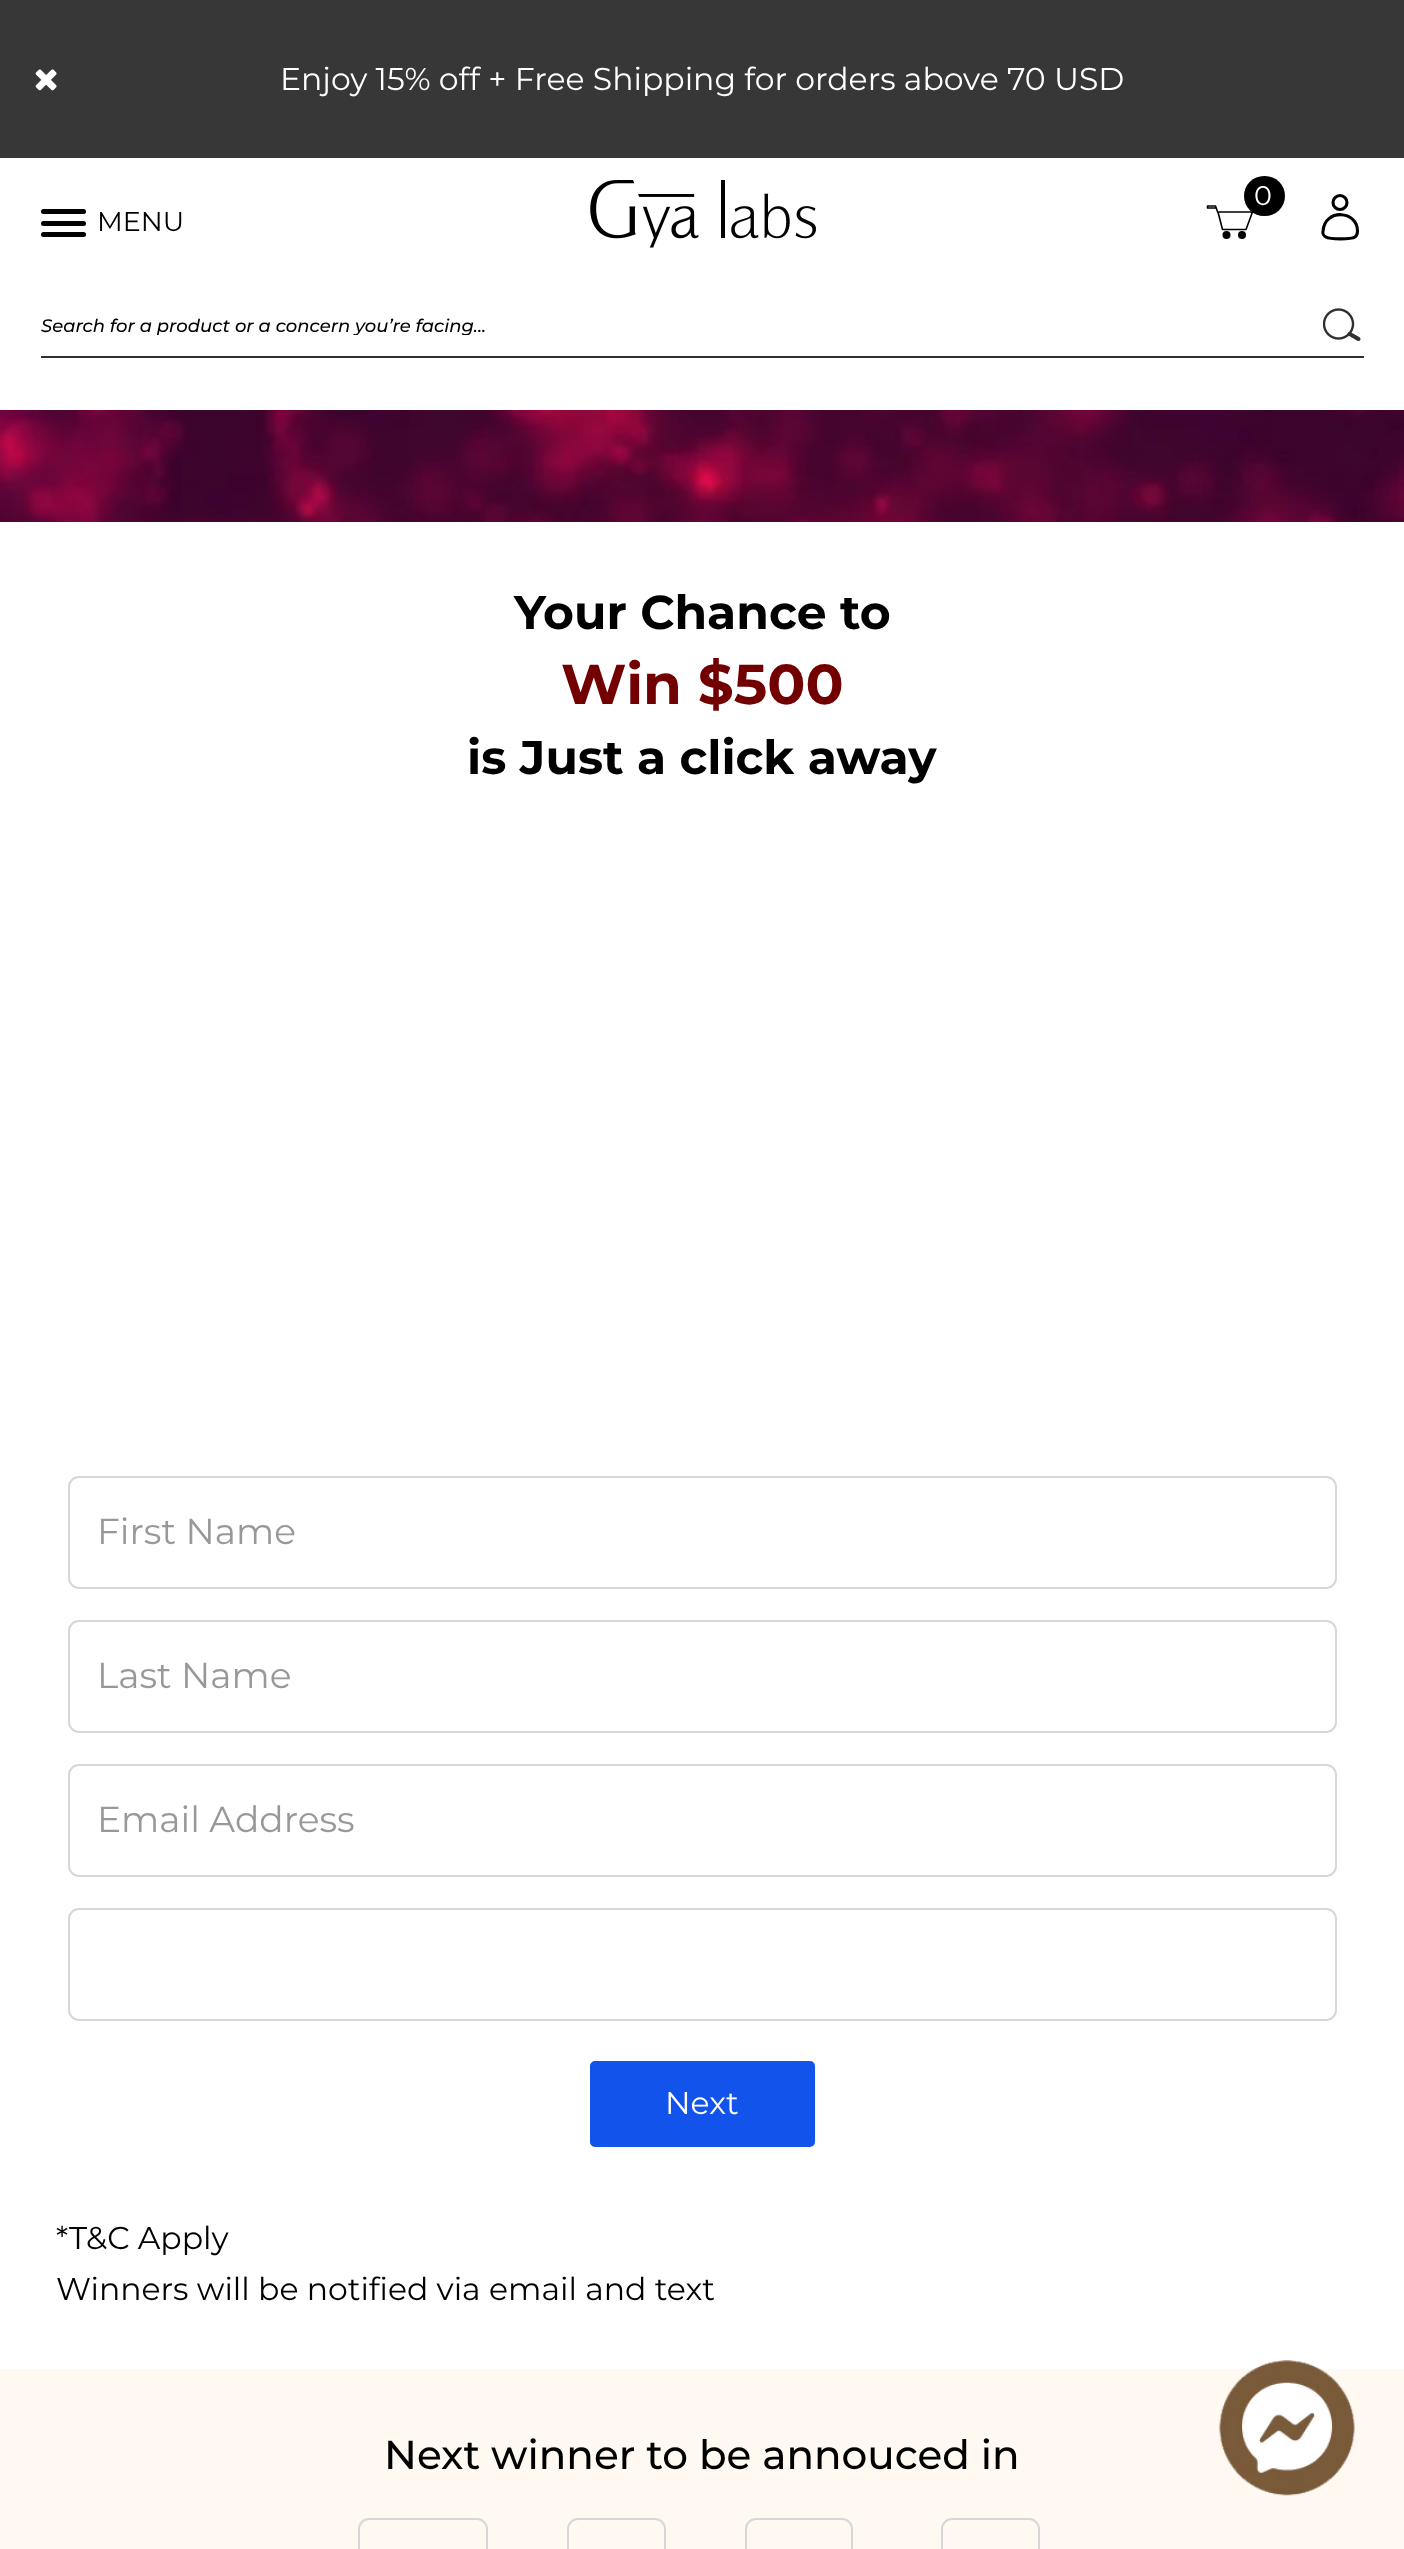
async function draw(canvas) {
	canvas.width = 1404;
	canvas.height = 2549;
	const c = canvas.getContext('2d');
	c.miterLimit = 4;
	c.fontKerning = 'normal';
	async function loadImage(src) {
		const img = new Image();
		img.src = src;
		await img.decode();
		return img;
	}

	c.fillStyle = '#fff';
	c.fillRect(0, 0, 1404, 2549);
	c.fillStyle = '#373737';
	c.fillRect(0, 0, 1404, 158);
	c.drawImage(await loadImage('img1.png'), 35, 69, 22, 22);
	c.font = '31.5px Montserrat';
	c.fillStyle = '#fff';
	c.fillText('Enjoy 15% off + Free Shipping for orders above 70 USD', 280, 90);
	c.fillStyle = '#000';
	c.beginPath();
	c.roundRect(41, 209, 45, 5, 2.5);
	c.fill();
	c.beginPath();
	c.roundRect(41, 221, 45, 5, 2.5);
	c.fill();
	c.beginPath();
	c.roundRect(41, 232, 45, 5, 2.5);
	c.fill();
	c.font = '27px Montserrat';
	c.fillText('MENU', 97, 231);
	c.drawImage(await loadImage('img2.png'), 590, 180, 226, 68);
	c.beginPath();
	c.moveTo(1218, 213);
	c.lineTo(1215.5, 206);
	c.lineTo(1207.5, 206);
	c.lineTo(1207.5, 208);
	c.lineTo(1216, 208);
	c.moveTo(1252.5, 212);
	c.lineTo(1218, 212);
	c.lineTo(1222.5, 229.5);
	c.lineTo(1246, 229.5);
	c.closePath();
	c.strokeStyle = '#000';
	c.lineWidth = 1.6;
	c.lineJoin = 'round';
	c.stroke();
	c.beginPath();
	c.roundRect(1244, 176, 41, 40, 20);
	c.fill();
	c.fillStyle = '#fff';
	c.fillText('0', 1254, 205);
	c.fillStyle = '#000';
	c.beginPath();
	c.arc(1226.5, 235, 4, 0, 2 * Math.PI);
	c.fill();
	c.beginPath();
	c.arc(1242, 235, 4, 0, 2 * Math.PI);
	c.fill();
	c.beginPath();
	c.arc(1340, 202.5, 7, 0, 2 * Math.PI);
	c.lineWidth = 3.1;
	c.stroke();
	c.beginPath();
	c.moveTo(1357.5, 231);
	c.bezierCurveTo(1357.5, 233, 1357, 235.5, 1355, 237);
	c.bezierCurveTo(1351, 239.5, 1330, 239.5, 1326, 237);
	c.bezierCurveTo(1323.5, 236, 1322.5, 233, 1323, 231);
	c.bezierCurveTo(1325, 208, 1357.5, 210.5, 1357.5, 231);
	c.closePath();
	c.lineJoin = 'miter';
	c.stroke();
	c.fillStyle = '#303030';
	c.fillRect(41, 356, 1323, 2);
	c.save();
	c.beginPath();
	c.rect(41, 313, 1314, 22);
	c.clip();
	c.font = 'italic 500 18px Montserrat';
	c.fillStyle = '#000';
	c.fillText('Search for a product or a concern you’re facing...', 41, 332);
	c.restore();
	c.drawImage(await loadImage('img3.png'), 1323, 308, 38, 33);
	c.drawImage(await loadImage('img4.png'), 0, 410, 1404, 112);
	c.font = 'bold 47.25px Montserrat';
	c.fillStyle = '#000';
	c.fillText('Your Chance to', 514, 629);
	c.font = 'bold 56.25px Montserrat';
	c.fillStyle = '#730000';
	c.fillText('Win $500', 561, 704);
	c.font = 'bold 47.25px Montserrat';
	c.fillStyle = '#000';
	c.fillText('is Just a click away', 467, 774);
	c.beginPath();
	c.roundRect(69, 1477, 1267, 111, 10);
	c.strokeStyle = '#d7d7d7';
	c.lineWidth = 2;
	c.stroke();
	c.font = '36px Montserrat';
	c.fillStyle = '#989898';
	c.fillText('First Name', 97, 1544);
	c.beginPath();
	c.roundRect(69, 1621, 1267, 111, 10);
	c.stroke();
	c.fillText('Last Name', 97, 1688);
	c.beginPath();
	c.roundRect(69, 1765, 1267, 111, 10);
	c.stroke();
	c.fillText('Email Address', 97, 1832);
	c.beginPath();
	c.roundRect(69, 1909, 1267, 111, 10);
	c.stroke();
	c.fillStyle = '#1254eb';
	c.beginPath();
	c.roundRect(591, 2062, 223, 84, 4);
	c.fill();
	c.strokeStyle = '#1254eb';
	c.stroke();
	c.font = '31.5px Montserrat';
	c.fillStyle = '#fff';
	c.fillText('Next', 665, 2114);
	c.fillStyle = '#000';
	c.fillText('*T&C Apply', 56, 2249);
	c.fillText('Winners will be notified via email and text', 56, 2300);
	c.fillStyle = '#fff9f2';
	c.fillRect(0, 2369, 1404, 180);
	c.font = '500 40.5px Montserrat';
	c.fillStyle = '#000';
	c.fillText('Next winner to be annouced in', 384, 2469);
	c.beginPath();
	c.roundRect(359, 2519, 128, 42, 10);
	c.strokeStyle = '#d7d7d7';
	c.stroke();
	c.beginPath();
	c.roundRect(568, 2519, 97, 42, 10);
	c.stroke();
	c.beginPath();
	c.roundRect(746, 2519, 106, 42, 10);
	c.stroke();
	c.beginPath();
	c.roundRect(942, 2519, 97, 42, 10);
	c.stroke();
	c.drawImage(await loadImage('img5.png'), 1219, 2360, 136, 136);
}

draw(document.querySelector('canvas'));
